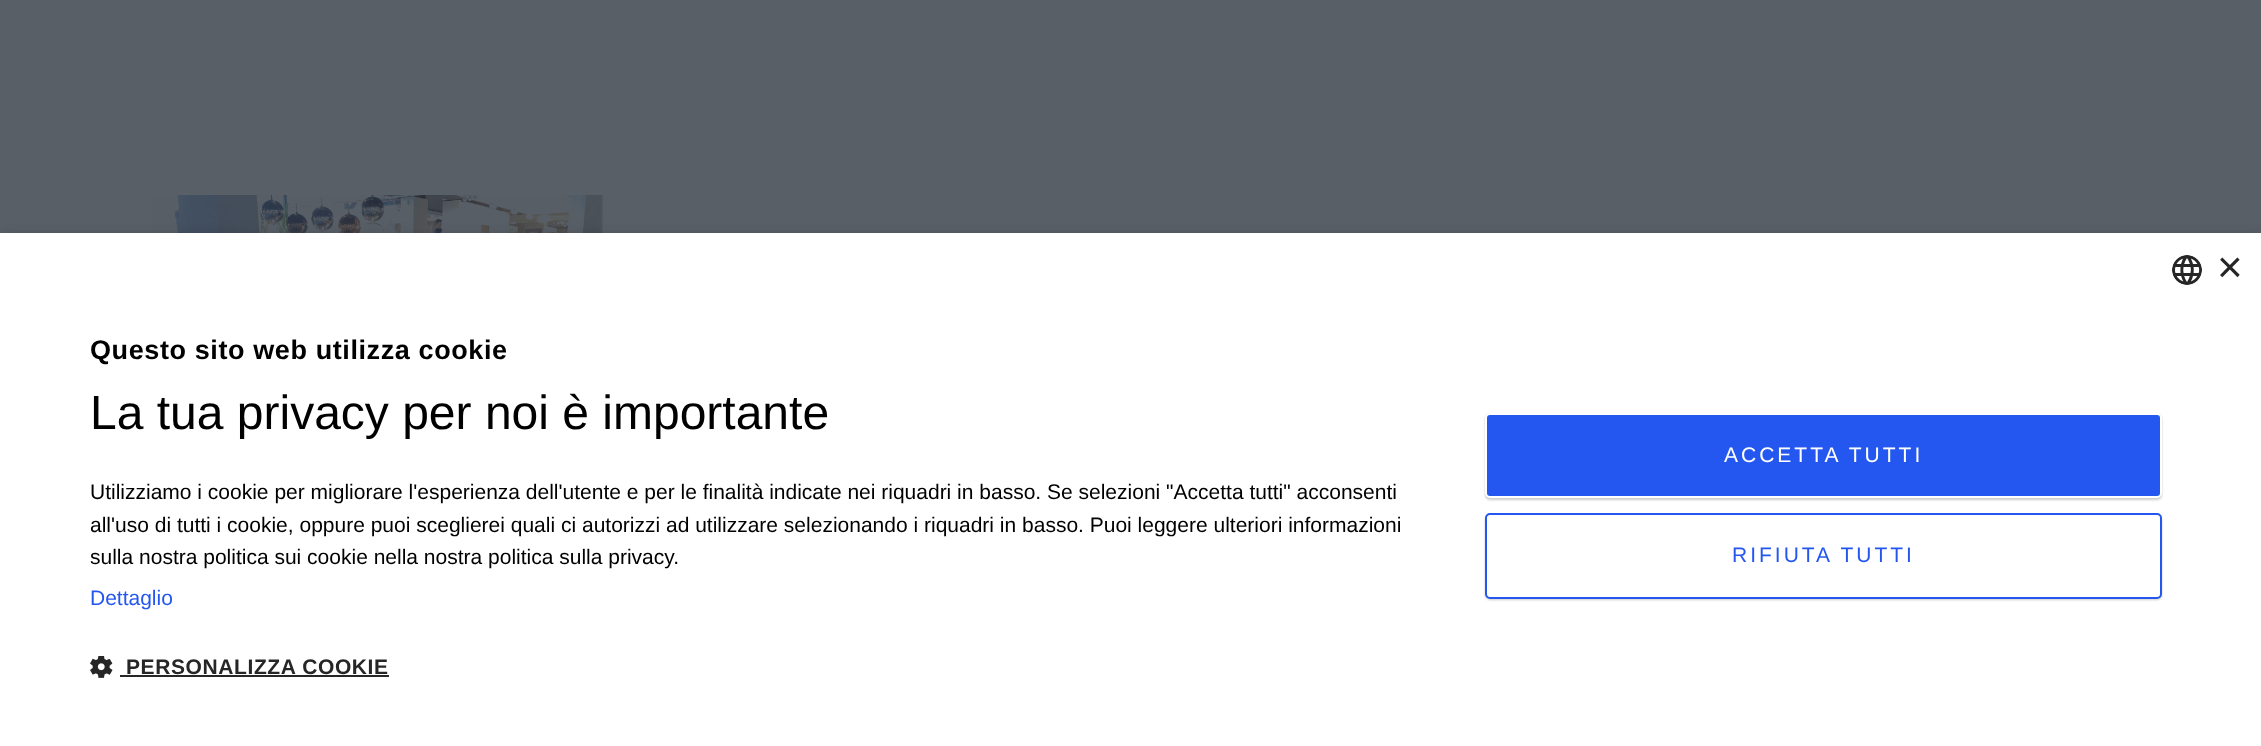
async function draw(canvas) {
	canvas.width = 2261;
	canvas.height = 746;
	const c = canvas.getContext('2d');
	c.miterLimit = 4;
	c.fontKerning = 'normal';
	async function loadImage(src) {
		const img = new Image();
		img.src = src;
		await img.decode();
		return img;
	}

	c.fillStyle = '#595f67';
	c.fillRect(0, 0, 2261, 746);
	c.drawImage(await loadImage('img1.png'), 153, 195, 450, 38);
	c.fillStyle = '#191f2759';
	c.filter = 'blur(6px)';
	c.beginPath();
	c.rect(2, 236, 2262, 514);
	c.fill();
	c.filter = 'none';
	c.fillStyle = '#fff';
	c.fillRect(0, 233, 2261, 513);
	c.drawImage(await loadImage('img2.png'), 2172, 255, 30, 30);
	c.font = '44px Liberation Sans';
	c.fillStyle = '#262626';
	c.fillText('×', 2217, 282);
	c.letterSpacing = '0.6px';
	c.font = 'bold 27px Liberation Sans';
	c.fillStyle = '#000';
	c.fillText('Questo sito web utilizza cookie', 90, 359);
	c.letterSpacing = '0px';
	c.font = '48px Liberation Sans';
	c.fillText('La tua privacy per noi è importante', 90, 429);
	c.font = '21px Liberation Sans';
	for (const [text, x, y] of [
		['Utilizziamo i cookie per migliorare l\'esperienza dell\'utente e per le finalità indicate nei riquadri in basso. Se selezioni "Accetta tutti" acconsenti', 90, 499],
		['all\'uso di tutti i cookie, oppure puoi sceglierei quali ci autorizzi ad utilizzare selezionando i riquadri in basso. Puoi leggere ulteriori informazioni', 90, 532],
		['sulla nostra politica sui cookie nella nostra politica sulla privacy.', 90, 564],
	]) {
		c.fillText(text, x, y);
	}
	c.fillStyle = '#2457f0';
	c.fillText('Dettaglio', 90, 605);
	c.drawImage(await loadImage('img3.png'), 90, 656, 23, 22);
	c.letterSpacing = '0.6px';
	c.font = 'bold 21px Liberation Sans';
	c.fillStyle = '#262626';
	c.fillText('PERSONALIZZA COOKIE', 126, 674);
	c.fillRect(120, 675, 269, 2);
	c.fillStyle = '#00000033';
	c.filter = 'blur(1px)';
	c.beginPath();
	c.roundRect(1485, 414, 677, 86, 5);
	c.fill();
	c.filter = 'none';
	c.fillStyle = '#2457f0';
	c.beginPath();
	c.roundRect(1486, 414, 675, 83, 4);
	c.fill();
	c.strokeStyle = '#fff';
	c.lineWidth = 2;
	c.stroke();
	c.letterSpacing = '3px';
	c.font = '21px Liberation Sans';
	c.fillStyle = '#fff';
	c.fillText('ACCETTA TUTTI', 1724, 462);
	c.fillStyle = '#00000033';
	c.filter = 'blur(1px)';
	c.beginPath();
	c.roundRect(1485, 515, 677, 85, 5);
	c.fill();
	c.filter = 'none';
	c.fillStyle = '#fff';
	c.beginPath();
	c.roundRect(1486, 514, 675, 84, 4);
	c.fill();
	c.strokeStyle = '#2457f0';
	c.stroke();
	c.fillStyle = '#2457f0';
	c.fillText('RIFIUTA TUTTI', 1732, 562);
}

draw(document.querySelector('canvas'));
